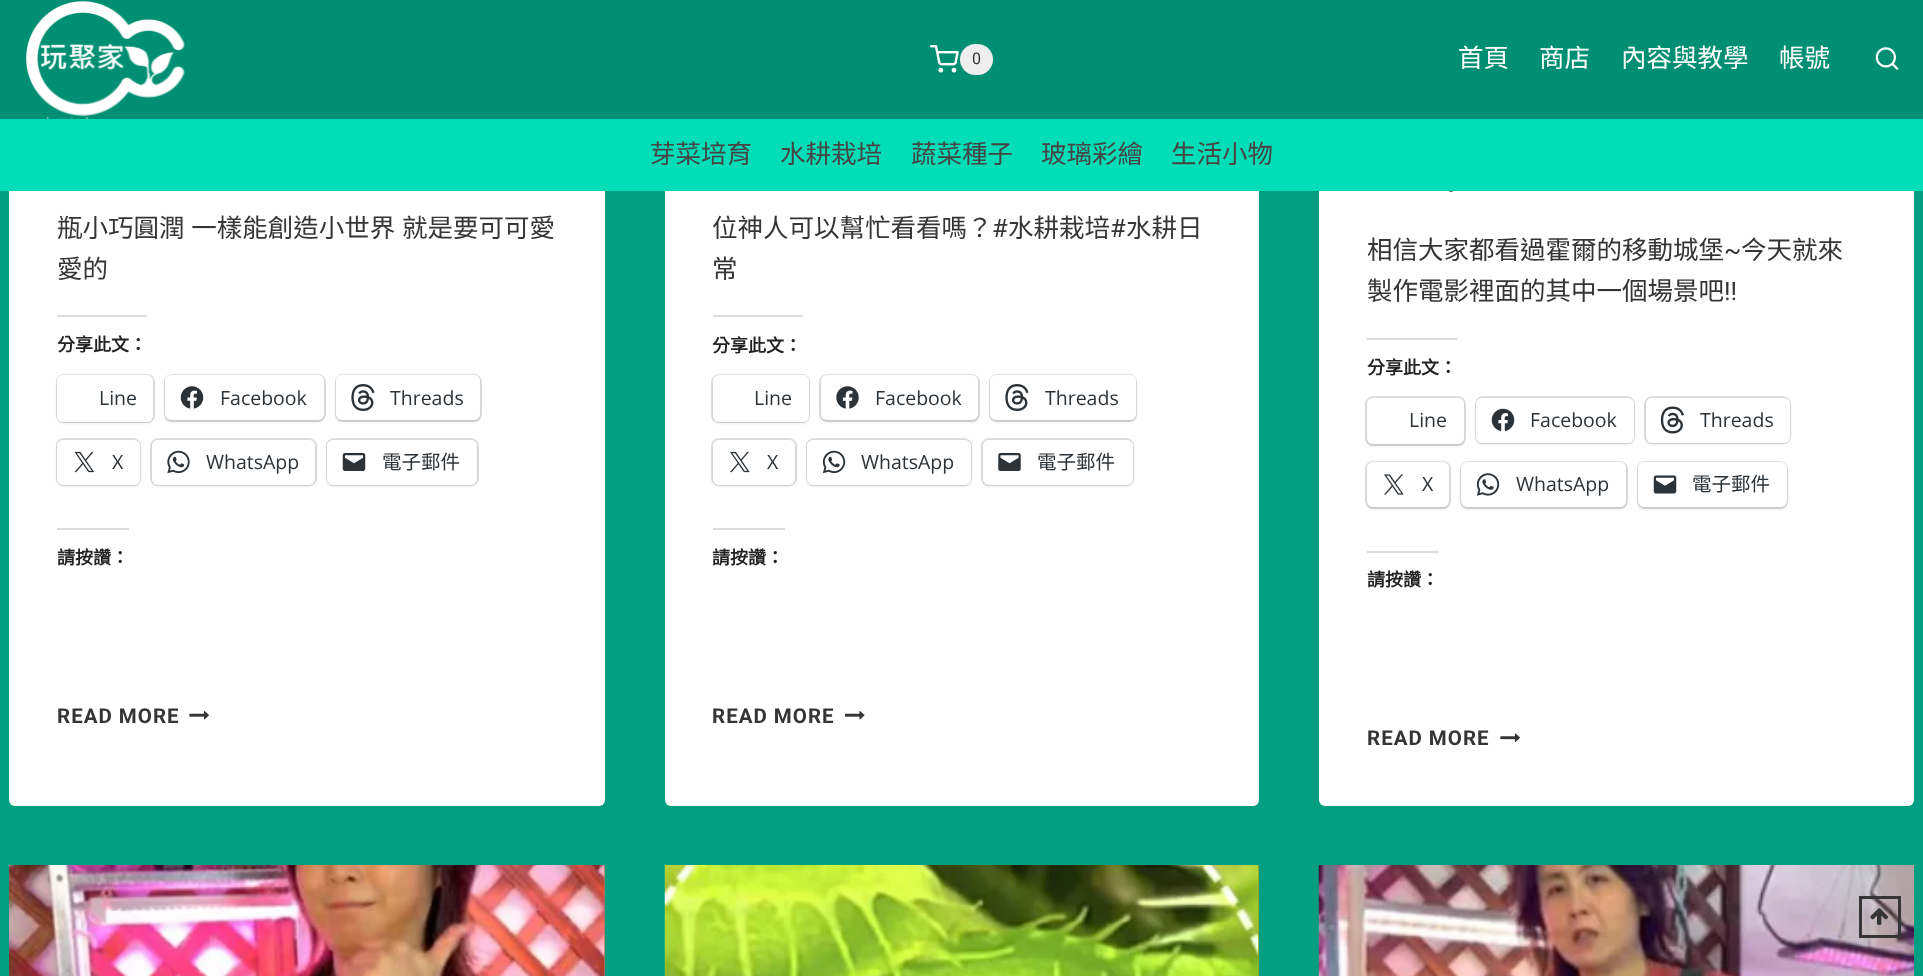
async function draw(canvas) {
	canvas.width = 1923;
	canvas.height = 976;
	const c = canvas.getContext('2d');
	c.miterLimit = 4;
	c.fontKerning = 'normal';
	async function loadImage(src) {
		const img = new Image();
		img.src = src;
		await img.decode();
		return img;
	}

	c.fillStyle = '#049f82';
	c.fillRect(0, 0, 1923, 976);
	c.fillStyle = '#fff';
	c.beginPath();
	c.roundRect(9, -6, 596, 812, 6);
	c.fill();
	c.beginPath();
	c.roundRect(665, -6, 594, 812, 6);
	c.fill();
	c.beginPath();
	c.roundRect(1319, -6, 595, 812, 6);
	c.fill();
	c.fillStyle = '#008f72';
	c.fillRect(0, 0, 1923, 119);
	c.drawImage(await loadImage('img1.png'), 26, 1, 159, 118);
	c.drawImage(await loadImage('img2.png'), 930, 45, 29, 28);
	c.fillStyle = '#eee';
	c.beginPath();
	c.roundRect(960, 44, 33, 31, 15.5);
	c.fill();
	c.font = '16px Roboto';
	c.fillStyle = '#353535';
	c.fillText('0', 972, 64);
	c.font = '25.5px Noto Sans CJK TC';
	c.fillStyle = '#fff';
	for (const [text, x, y] of [
		['首頁', 1458, 67],
		['商店', 1539, 67],
		['內容與教學', 1621, 67],
		['帳號', 1779, 67],
	]) {
		c.fillText(text, x, y);
	}
	c.drawImage(await loadImage('img3.png'), 1875, 47, 24, 23);
	c.fillStyle = '#5d5d5d';
	c.beginPath();
	c.arc(1451, 189, 3, 0, 2 * Math.PI);
	c.fill();
	c.fillStyle = '#00ddb7';
	c.fillRect(0, 119, 1923, 72);
	c.fillStyle = '#454545';
	for (const [text, x, y] of [
		['芽菜培育', 650, 163],
		['水耕栽培', 780, 163],
		['蔬菜種子', 911, 163],
		['玻璃彩繪', 1041, 163],
		['生活小物', 1171, 163],
	]) {
		c.fillText(text, x, y);
	}
	c.wordSpacing = '1px';
	c.fillStyle = '#353535';
	c.fillText('瓶小巧圓潤 一樣能創造小世界 就是要可可愛', 57, 237);
	c.wordSpacing = '0px';
	c.fillText('愛的', 57, 278);
	c.fillStyle = '#dcdcde';
	c.fillRect(57, 315, 90, 2);
	c.font = 'bold 18px Noto Sans CJK TC';
	c.fillStyle = '#222';
	c.fillText('分享此文：', 57, 351);
	c.beginPath();
	c.roundRect(57, 375, 97, 47, 7);
	c.strokeStyle = '#e0e0e0';
	c.lineWidth = 2;
	c.stroke();
	c.fillStyle = '#0000001f';
	c.filter = 'blur(1.5px)';
	c.beginPath();
	c.roundRect(57, 377, 96, 46, 6);
	c.fill();
	c.filter = 'none';
	c.fillStyle = '#fff';
	c.beginPath();
	c.roundRect(57, 375, 96, 47, 6);
	c.fill();
	c.font = '19.5px Open Sans';
	c.fillStyle = '#2c3338';
	c.fillText('Line', 99, 405);
	c.beginPath();
	c.roundRect(165, 375, 160, 46, 7);
	c.stroke();
	c.fillStyle = '#0000001f';
	c.filter = 'blur(1.5px)';
	c.beginPath();
	c.roundRect(165, 377, 159, 45, 6);
	c.fill();
	c.filter = 'none';
	c.fillStyle = '#fff';
	c.beginPath();
	c.roundRect(165, 375, 159, 45, 6);
	c.fill();
	c.drawImage(await loadImage('img4.png'), 180, 386, 24, 23);
	c.fillStyle = '#2c3338';
	c.fillText('Facebook', 220, 405);
	c.beginPath();
	c.roundRect(336, 375, 145, 46, 7);
	c.stroke();
	c.fillStyle = '#0000001f';
	c.filter = 'blur(1.5px)';
	c.beginPath();
	c.roundRect(336, 377, 144, 45, 6);
	c.fill();
	c.filter = 'none';
	c.fillStyle = '#fff';
	c.beginPath();
	c.roundRect(336, 375, 144, 45, 6);
	c.fill();
	c.drawImage(await loadImage('img5.png'), 351, 384, 24, 27);
	c.fillStyle = '#2c3338';
	c.fillText('Threads', 390, 405);
	c.beginPath();
	c.roundRect(57, 439, 83, 46, 7);
	c.stroke();
	c.fillStyle = '#0000001f';
	c.filter = 'blur(1.5px)';
	c.beginPath();
	c.roundRect(57, 441, 83, 45, 6);
	c.fill();
	c.filter = 'none';
	c.fillStyle = '#fff';
	c.beginPath();
	c.roundRect(57, 440, 83, 45, 6);
	c.fill();
	c.drawImage(await loadImage('img6.png'), 74, 451, 21, 22);
	c.fillStyle = '#2c3338';
	c.fillText('X', 112, 469);
	c.beginPath();
	c.roundRect(151, 439, 165, 46, 7);
	c.stroke();
	c.fillStyle = '#0000001f';
	c.filter = 'blur(1.5px)';
	c.beginPath();
	c.roundRect(152, 441, 163, 45, 6);
	c.fill();
	c.filter = 'none';
	c.fillStyle = '#fff';
	c.beginPath();
	c.roundRect(152, 440, 163, 45, 6);
	c.fill();
	c.drawImage(await loadImage('img7.png'), 167, 450, 23, 24);
	c.fillStyle = '#2c3338';
	c.fillText('WhatsApp', 206, 469);
	c.beginPath();
	c.roundRect(327, 439, 151, 46, 7);
	c.stroke();
	c.fillStyle = '#0000001f';
	c.filter = 'blur(1.5px)';
	c.beginPath();
	c.roundRect(327, 441, 150, 45, 6);
	c.fill();
	c.filter = 'none';
	c.fillStyle = '#fff';
	c.beginPath();
	c.roundRect(327, 440, 150, 45, 6);
	c.fill();
	c.drawImage(await loadImage('img8.png'), 342, 453, 24, 18);
	c.font = '19.5px Noto Sans CJK TC';
	c.fillStyle = '#2c3338';
	c.fillText('電子郵件', 382, 469);
	c.fillStyle = '#dcdcde';
	c.fillRect(57, 528, 72, 2);
	c.font = 'bold 18px Noto Sans CJK TC';
	c.fillStyle = '#222';
	c.fillText('請按讚：', 57, 564);
	c.letterSpacing = '1px';
	c.font = 'bold 20.5px Roboto';
	c.fillStyle = '#353535';
	c.fillText('READ MORE', 57, 723);
	c.drawImage(await loadImage('img9.png'), 189, 710, 20, 10);
	c.letterSpacing = '0px';
	c.font = '25.5px Noto Sans CJK TC';
	c.fillText('位神人可以幫忙看看嗎？', 712, 237);
	c.font = '25.5px Roboto';
	c.fillText('#', 992, 237);
	c.font = '25.5px Noto Sans CJK TC';
	c.fillText('水耕栽培', 1008, 237);
	c.font = '25.5px Roboto';
	c.fillText('#', 1110, 237);
	c.font = '25.5px Noto Sans CJK TC';
	c.fillText('水耕日', 1126, 237);
	c.fillText('常', 712, 278);
	c.fillStyle = '#dcdcde';
	c.fillRect(713, 315, 90, 2);
	c.font = 'bold 18px Noto Sans CJK TC';
	c.fillStyle = '#222';
	c.fillText('分享此文：', 712, 352);
	c.beginPath();
	c.roundRect(712, 375, 97, 47, 7);
	c.stroke();
	c.fillStyle = '#0000001f';
	c.filter = 'blur(1.5px)';
	c.beginPath();
	c.roundRect(713, 377, 96, 46, 6);
	c.fill();
	c.filter = 'none';
	c.fillStyle = '#fff';
	c.beginPath();
	c.roundRect(713, 375, 96, 47, 6);
	c.fill();
	c.font = '19.5px Open Sans';
	c.fillStyle = '#2c3338';
	c.fillText('Line', 754, 405);
	c.beginPath();
	c.roundRect(820, 375, 159, 46, 7);
	c.stroke();
	c.fillStyle = '#0000001f';
	c.filter = 'blur(1.5px)';
	c.beginPath();
	c.roundRect(821, 377, 157, 45, 6);
	c.fill();
	c.filter = 'none';
	c.fillStyle = '#fff';
	c.beginPath();
	c.roundRect(821, 375, 157, 45, 6);
	c.fill();
	c.drawImage(await loadImage('img10.png'), 836, 386, 23, 23);
	c.fillStyle = '#2c3338';
	c.fillText('Facebook', 875, 405);
	c.beginPath();
	c.roundRect(990, 375, 146, 46, 7);
	c.stroke();
	c.fillStyle = '#0000001f';
	c.filter = 'blur(1.5px)';
	c.beginPath();
	c.roundRect(990, 377, 146, 45, 6);
	c.fill();
	c.filter = 'none';
	c.fillStyle = '#fff';
	c.beginPath();
	c.roundRect(990, 375, 146, 45, 6);
	c.fill();
	c.drawImage(await loadImage('img5.png'), 1005, 384, 24, 27);
	c.fillStyle = '#2c3338';
	c.fillText('Threads', 1045, 405);
	c.beginPath();
	c.roundRect(712, 439, 84, 46, 7);
	c.stroke();
	c.fillStyle = '#0000001f';
	c.filter = 'blur(1.5px)';
	c.beginPath();
	c.roundRect(713, 441, 82, 45, 6);
	c.fill();
	c.filter = 'none';
	c.fillStyle = '#fff';
	c.beginPath();
	c.roundRect(713, 440, 82, 45, 6);
	c.fill();
	c.drawImage(await loadImage('img11.png'), 730, 451, 20, 22);
	c.fillStyle = '#2c3338';
	c.fillText('X', 767, 469);
	c.beginPath();
	c.roundRect(807, 439, 164, 46, 7);
	c.stroke();
	c.fillStyle = '#0000001f';
	c.filter = 'blur(1.5px)';
	c.beginPath();
	c.roundRect(807, 441, 164, 45, 6);
	c.fill();
	c.filter = 'none';
	c.fillStyle = '#fff';
	c.beginPath();
	c.roundRect(807, 440, 164, 45, 6);
	c.fill();
	c.drawImage(await loadImage('img12.png'), 822, 450, 24, 24);
	c.fillStyle = '#2c3338';
	c.fillText('WhatsApp', 861, 469);
	c.beginPath();
	c.roundRect(982, 439, 151, 46, 7);
	c.stroke();
	c.fillStyle = '#0000001f';
	c.filter = 'blur(1.5px)';
	c.beginPath();
	c.roundRect(983, 441, 150, 45, 6);
	c.fill();
	c.filter = 'none';
	c.fillStyle = '#fff';
	c.beginPath();
	c.roundRect(983, 440, 150, 45, 6);
	c.fill();
	c.drawImage(await loadImage('img13.png'), 998, 453, 23, 18);
	c.font = '19.5px Noto Sans CJK TC';
	c.fillStyle = '#2c3338';
	c.fillText('電子郵件', 1037, 469);
	c.fillStyle = '#dcdcde';
	c.fillRect(713, 528, 72, 2);
	c.font = 'bold 18px Noto Sans CJK TC';
	c.fillStyle = '#222';
	c.fillText('請按讚：', 712, 564);
	c.letterSpacing = '1px';
	c.font = 'bold 20.5px Roboto';
	c.fillStyle = '#353535';
	c.fillText('READ MORE', 712, 723);
	c.drawImage(await loadImage('img14.png'), 845, 710, 20, 10);
	c.letterSpacing = '0px';
	c.font = '25.5px Noto Sans CJK TC';
	c.fillText('相信大家都看過霍爾的移動城堡', 1367, 259);
	c.font = '25.5px Roboto';
	c.fillText('~', 1724, 259);
	c.font = '25.5px Noto Sans CJK TC';
	c.fillText('今天就來', 1741, 259);
	c.fillText('製作電影裡面的其中一個場景吧', 1367, 300);
	c.font = '25.5px Roboto';
	c.fillText('!!', 1724, 300);
	c.fillStyle = '#dcdcde';
	c.fillRect(1367, 338, 90, 2);
	c.font = 'bold 18px Noto Sans CJK TC';
	c.fillStyle = '#222';
	c.fillText('分享此文：', 1367, 374);
	c.beginPath();
	c.roundRect(1366, 397, 99, 48, 7);
	c.stroke();
	c.fillStyle = '#0000001f';
	c.filter = 'blur(1.5px)';
	c.beginPath();
	c.roundRect(1367, 399, 97, 47, 6);
	c.fill();
	c.filter = 'none';
	c.fillStyle = '#fff';
	c.beginPath();
	c.roundRect(1367, 398, 97, 46, 6);
	c.fill();
	c.font = '19.5px Open Sans';
	c.fillStyle = '#2c3338';
	c.fillText('Line', 1409, 427);
	c.beginPath();
	c.roundRect(1476, 397, 158, 46, 7);
	c.stroke();
	c.fillStyle = '#0000001f';
	c.filter = 'blur(1.5px)';
	c.beginPath();
	c.roundRect(1476, 399, 158, 45, 6);
	c.fill();
	c.filter = 'none';
	c.fillStyle = '#fff';
	c.beginPath();
	c.roundRect(1476, 398, 158, 45, 6);
	c.fill();
	c.drawImage(await loadImage('img15.png'), 1491, 408, 24, 23);
	c.fillStyle = '#2c3338';
	c.fillText('Facebook', 1530, 427);
	c.beginPath();
	c.roundRect(1645, 397, 145, 46, 7);
	c.stroke();
	c.fillStyle = '#0000001f';
	c.filter = 'blur(1.5px)';
	c.beginPath();
	c.roundRect(1646, 399, 144, 45, 6);
	c.fill();
	c.filter = 'none';
	c.fillStyle = '#fff';
	c.beginPath();
	c.roundRect(1646, 398, 144, 45, 6);
	c.fill();
	c.drawImage(await loadImage('img16.png'), 1660, 406, 24, 28);
	c.fillStyle = '#2c3338';
	c.fillText('Threads', 1700, 427);
	c.beginPath();
	c.roundRect(1366, 462, 84, 46, 7);
	c.stroke();
	c.fillStyle = '#0000001f';
	c.filter = 'blur(1.5px)';
	c.beginPath();
	c.roundRect(1367, 464, 82, 45, 6);
	c.fill();
	c.filter = 'none';
	c.fillStyle = '#fff';
	c.beginPath();
	c.roundRect(1367, 462, 82, 45, 6);
	c.fill();
	c.drawImage(await loadImage('img17.png'), 1384, 474, 20, 21);
	c.fillStyle = '#2c3338';
	c.fillText('X', 1422, 491);
	c.beginPath();
	c.roundRect(1461, 462, 166, 46, 7);
	c.stroke();
	c.fillStyle = '#0000001f';
	c.filter = 'blur(1.5px)';
	c.beginPath();
	c.roundRect(1461, 464, 165, 45, 6);
	c.fill();
	c.filter = 'none';
	c.fillStyle = '#fff';
	c.beginPath();
	c.roundRect(1461, 462, 165, 45, 6);
	c.fill();
	c.drawImage(await loadImage('img18.png'), 1476, 473, 24, 23);
	c.fillStyle = '#2c3338';
	c.fillText('WhatsApp', 1516, 491);
	c.beginPath();
	c.roundRect(1638, 462, 149, 46, 7);
	c.stroke();
	c.fillStyle = '#0000001f';
	c.filter = 'blur(1.5px)';
	c.beginPath();
	c.roundRect(1638, 464, 149, 45, 6);
	c.fill();
	c.filter = 'none';
	c.fillStyle = '#fff';
	c.beginPath();
	c.roundRect(1638, 462, 149, 45, 6);
	c.fill();
	c.drawImage(await loadImage('img19.png'), 1653, 475, 24, 19);
	c.font = '19.5px Noto Sans CJK TC';
	c.fillStyle = '#2c3338';
	c.fillText('電子郵件', 1692, 491);
	c.fillStyle = '#dcdcde';
	c.fillRect(1367, 551, 72, 2);
	c.font = 'bold 18px Noto Sans CJK TC';
	c.fillStyle = '#222';
	c.fillText('請按讚：', 1367, 586);
	c.letterSpacing = '1px';
	c.font = 'bold 20.5px Roboto';
	c.fillStyle = '#353535';
	c.fillText('READ MORE', 1367, 745);
	c.drawImage(await loadImage('img20.png'), 1500, 733, 20, 9);
	c.fillStyle = '#a07761';
	c.fillRect(604, 866, 1, 110);
	c.drawImage(await loadImage('img21.png'), 9, 865, 596, 111);
	c.fillStyle = '#80a12d';
	c.fillRect(1258, 866, 1, 110);
	c.drawImage(await loadImage('img22.png'), 664, 865, 595, 111);
	c.drawImage(await loadImage('img23.png'), 1318, 865, 596, 111);
	c.strokeStyle = '#353535';
	c.lineWidth = 3;
	c.strokeRect(1860.5, 897.5, 39, 39);
	c.drawImage(await loadImage('img24.png'), 1870, 908, 18, 17);
}

draw(document.querySelector('canvas'));
